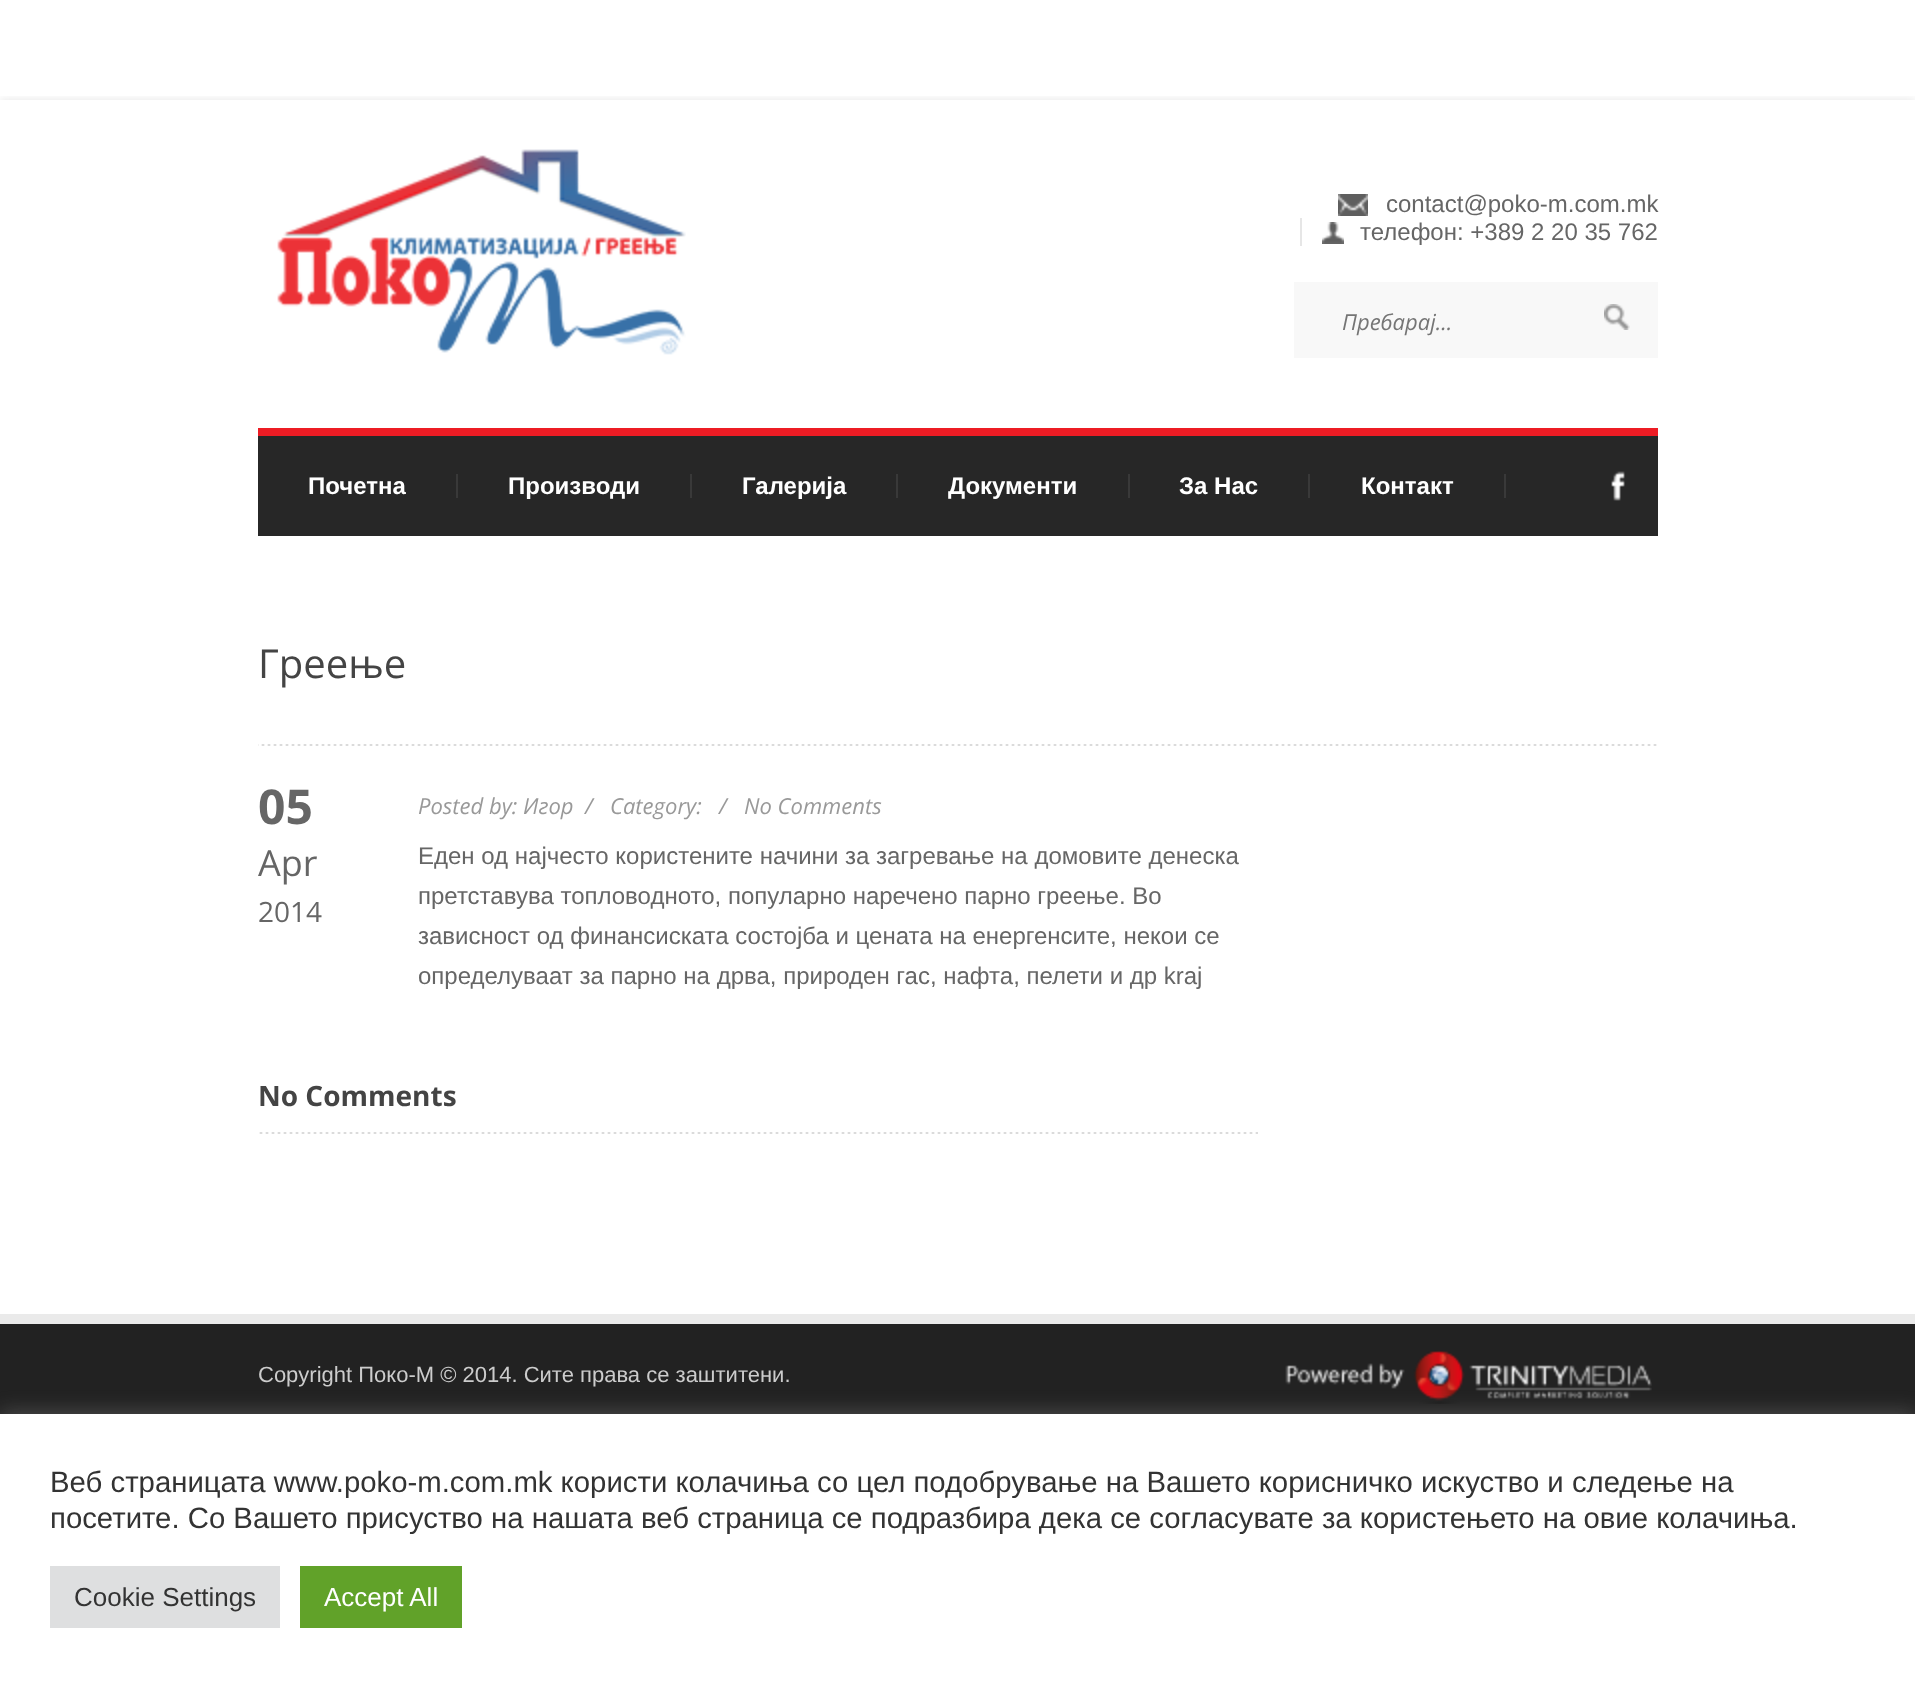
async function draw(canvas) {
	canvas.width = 1915;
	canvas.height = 1687;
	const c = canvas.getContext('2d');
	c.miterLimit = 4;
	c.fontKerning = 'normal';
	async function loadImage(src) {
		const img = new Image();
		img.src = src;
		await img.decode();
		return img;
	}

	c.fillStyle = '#fff';
	c.fillRect(0, 0, 1915, 1687);
	c.save();
	c.beginPath();
	c.rect(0, 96, 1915, 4);
	c.clip();
	c.fillStyle = '#0000001a';
	c.filter = 'blur(5px)';
	c.beginPath();
	c.rect(0, 100, 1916, 1324);
	c.fill();
	c.filter = 'none';
	c.restore();
	c.drawImage(await loadImage('img1.png'), 277, 149, 409, 206);
	c.drawImage(await loadImage('img2.png'), 1338, 194, 30, 22);
	c.font = '24px Liberation Sans';
	c.fillStyle = '#666';
	c.fillText('contact@poko-m.com.mk', 1386, 212);
	c.fillStyle = '#e6e6e6';
	c.fillRect(1300, 218, 2, 28);
	c.drawImage(await loadImage('img3.png'), 1322, 222, 22, 22);
	c.fillStyle = '#666';
	c.fillText('телефон: +389 2 20 35 762', 1360, 240);
	c.fillStyle = '#f8f8f8';
	c.fillRect(1294, 282, 364, 76);
	c.font = 'italic 22px Open Sans';
	c.fillStyle = '#757575';
	c.fillText('Пребарај...', 1342, 330);
	c.drawImage(await loadImage('img4.png'), 1604, 304, 26, 26);
	for (const [x, y, w, h, color] of [
		[258, 436, 1400, 100, '#272727'],
		[258, 428, 1400, 8, '#ed1c24'],
		[456, 474, 2, 24, '#393939'],
	]) {
		c.fillStyle = color;
		c.fillRect(x, y, w, h);
	}
	c.font = 'bold 24px Liberation Sans';
	c.fillStyle = '#fff';
	c.fillText('Почетна', 308, 494);
	c.fillStyle = '#393939';
	c.fillRect(690, 474, 2, 24);
	c.fillStyle = '#fff';
	c.fillText('Производи', 508, 494);
	c.fillStyle = '#393939';
	c.fillRect(896, 474, 2, 24);
	c.fillStyle = '#fff';
	c.fillText('Галерија', 742, 494);
	c.fillStyle = '#393939';
	c.fillRect(1128, 474, 2, 24);
	c.fillStyle = '#fff';
	c.fillText('Документи', 948, 494);
	c.fillStyle = '#393939';
	c.fillRect(1308, 474, 2, 24);
	c.fillStyle = '#fff';
	c.fillText('За Нас', 1179, 494);
	c.fillStyle = '#393939';
	c.fillRect(1504, 474, 2, 24);
	c.fillStyle = '#fff';
	c.fillText('Контакт', 1361, 494);
	c.drawImage(await loadImage('img5.png'), 1611, 471, 14, 30);
	c.drawImage(await loadImage('img6.png'), 258, 744, 1399, 2);
	c.font = '40px Open Sans';
	c.fillStyle = '#444';
	c.fillText('Греење', 258, 678);
	c.font = 'bold 48px Open Sans';
	c.fillStyle = '#666';
	c.fillText('05', 258, 824);
	c.font = '36px Open Sans';
	c.fillText('Apr', 258, 876);
	c.font = '28px Open Sans';
	c.fillText('2014', 258, 922);
	c.font = 'italic 22px Open Sans';
	c.fillStyle = '#999';
	for (const [text, x, y] of [
		['Posted by: Игор  /', 418, 814],
		['Category:', 610, 814],
		['/', 719, 814],
		['No Comments', 744, 814],
	]) {
		c.fillText(text, x, y);
	}
	c.font = '24px Liberation Sans';
	c.fillStyle = '#666';
	for (const [text, x, y] of [
		['Еден од најчесто користените начини за загревање на домовите денеска', 418, 864],
		['претставува топловодното, популарно наречено парно греење. Во', 418, 904],
		['зависност од финансиската состојба и цената на енергенсите, некои се', 418, 944],
		['определуваат за парно на дрва, природен гас, нафта, пелети и др kraj', 418, 984],
	]) {
		c.fillText(text, x, y);
	}
	c.drawImage(await loadImage('img7.png'), 259, 1132, 999, 2);
	c.font = 'bold 28px Open Sans';
	c.fillStyle = '#444';
	c.fillText('No Comments', 258, 1106);
	c.fillStyle = '#eaeaea';
	c.fillRect(0, 1314, 1915, 10);
	c.fillStyle = '#222';
	c.fillRect(0, 1324, 1915, 90);
	c.font = '22px Liberation Sans';
	c.fillStyle = '#ccc';
	c.fillText('Copyright Поко-М © 2014. Сите права се заштитени.', 258, 1382);
	c.drawImage(await loadImage('img8.png'), 1285, 1350, 367, 54);
	c.fillStyle = '#acabab4d';
	c.filter = 'blur(10px)';
	c.beginPath();
	c.rect(0, 1412, 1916, 274);
	c.fill();
	c.filter = 'none';
	c.fillStyle = '#fff';
	c.fillRect(0, 1414, 1915, 273);
	c.font = '29.33px Liberation Sans';
	c.fillStyle = '#333';
	c.fillText('Веб страницата www.poko-m.com.mk користи колачиња со цел подобрување на Вашето корисничко искуство и следење на', 50, 1492);
	c.fillText('посетите. Со Вашето присуство на нашата веб страница се подразбира дека се согласувате за користењето на овие колачиња.', 50, 1528);
	c.fillStyle = '#dedfe0';
	c.fillRect(50, 1566, 230, 62);
	c.font = '26px Liberation Sans';
	c.fillStyle = '#333';
	c.fillText('Cookie Settings', 74, 1606);
	c.fillStyle = '#61a229';
	c.fillRect(300, 1566, 162, 62);
	c.fillStyle = '#fff';
	c.fillText('Accept All', 324, 1606);
}

draw(document.querySelector('canvas'));
